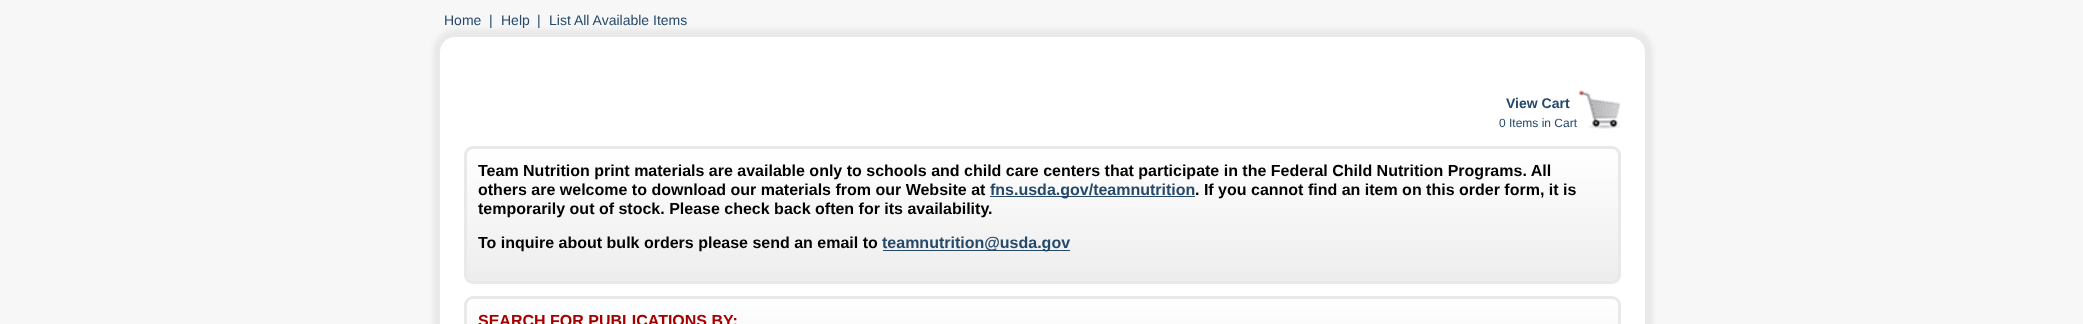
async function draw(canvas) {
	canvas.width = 2083;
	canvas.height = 324;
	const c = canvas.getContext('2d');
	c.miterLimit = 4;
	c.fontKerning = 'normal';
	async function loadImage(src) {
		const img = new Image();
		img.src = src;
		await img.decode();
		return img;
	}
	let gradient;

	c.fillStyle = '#f7f7f7';
	c.fillRect(0, 0, 2083, 324);
	c.fillStyle = '#e9e9e9';
	c.filter = 'blur(2px)';
	c.beginPath();
	c.roundRect(433, 29, 1220, 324, 23);
	c.fill();
	c.filter = 'none';
	c.font = '14px Liberation Sans';
	c.fillStyle = '#24496b';
	for (const [text, x, y] of [
		['Home', 444, 25],
		['|', 489, 25],
		['Help', 501, 25],
		['|', 537, 25],
		['List All Available Items', 549, 25],
	]) {
		c.fillText(text, x, y);
	}
	c.fillStyle = '#fff';
	c.beginPath();
	c.roundRect(438, 35, 1209, 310, 17);
	c.fill();
	c.strokeStyle = '#e9e9e9';
	c.lineWidth = 4;
	c.stroke();
	c.font = 'bold 14px Liberation Sans';
	c.fillStyle = '#24496b';
	c.fillText('View Cart', 1506, 108);
	c.drawImage(await loadImage('img1.png'), 1578, 90, 43, 39);
	c.font = '12px Liberation Sans';
	c.fillText('0 Items in Cart', 1499, 127);
	c.save();
	c.beginPath();
	c.roundRect(464, 146, 1157, 138, 9);
	c.clip();
	gradient = c.createLinearGradient(466, 149, 466, 281);
	gradient.addColorStop(0, '#fff');
	gradient.addColorStop(1, '#ededed');
	c.fillStyle = gradient;
	c.fillRect(464, 149, 1157, 132);
	c.restore();
	c.beginPath();
	c.roundRect(465.5, 147.5, 1154, 135, 7.5);
	c.lineWidth = 3;
	c.stroke();
	c.font = 'bold 16px Liberation Sans';
	c.fillStyle = '#000';
	c.fillText('Team Nutrition print materials are available only to schools and child care centers that participate in the Federal Child Nutrition Programs. All', 478, 176);
	c.fillText('others are welcome to download our materials from our Website at', 478, 195);
	c.fillStyle = '#24496b';
	c.fillRect(990, 196, 205, 1);
	c.fillText('fns.usda.gov/teamnutrition', 990, 195);
	c.fillStyle = '#000';
	for (const [text, x, y] of [
		['. If you cannot find an item on this order form, it is', 1195, 195],
		['temporarily out of stock. Please check back often for its availability.', 478, 214],
		['To inquire about bulk orders please send an email to', 478, 248],
	]) {
		c.fillText(text, x, y);
	}
	c.fillStyle = '#24496b';
	c.fillRect(883, 250, 187, 1);
	c.fillText('teamnutrition@usda.gov', 882, 248);
	c.save();
	c.beginPath();
	c.roundRect(464, 296, 1157, 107, 9);
	c.clip();
	gradient = c.createLinearGradient(466, 299, 466, 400);
	gradient.addColorStop(0, '#fff');
	gradient.addColorStop(1, '#ededed');
	c.fillStyle = gradient;
	c.fillRect(464, 299, 1157, 25);
	c.restore();
	c.beginPath();
	c.roundRect(465.5, 297.5, 1154, 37, 7.5);
	c.stroke();
	c.fillStyle = '#a50000';
	c.fillText('SEARCH FOR PUBLICATIONS BY:', 478, 326);
}

draw(document.querySelector('canvas'));
